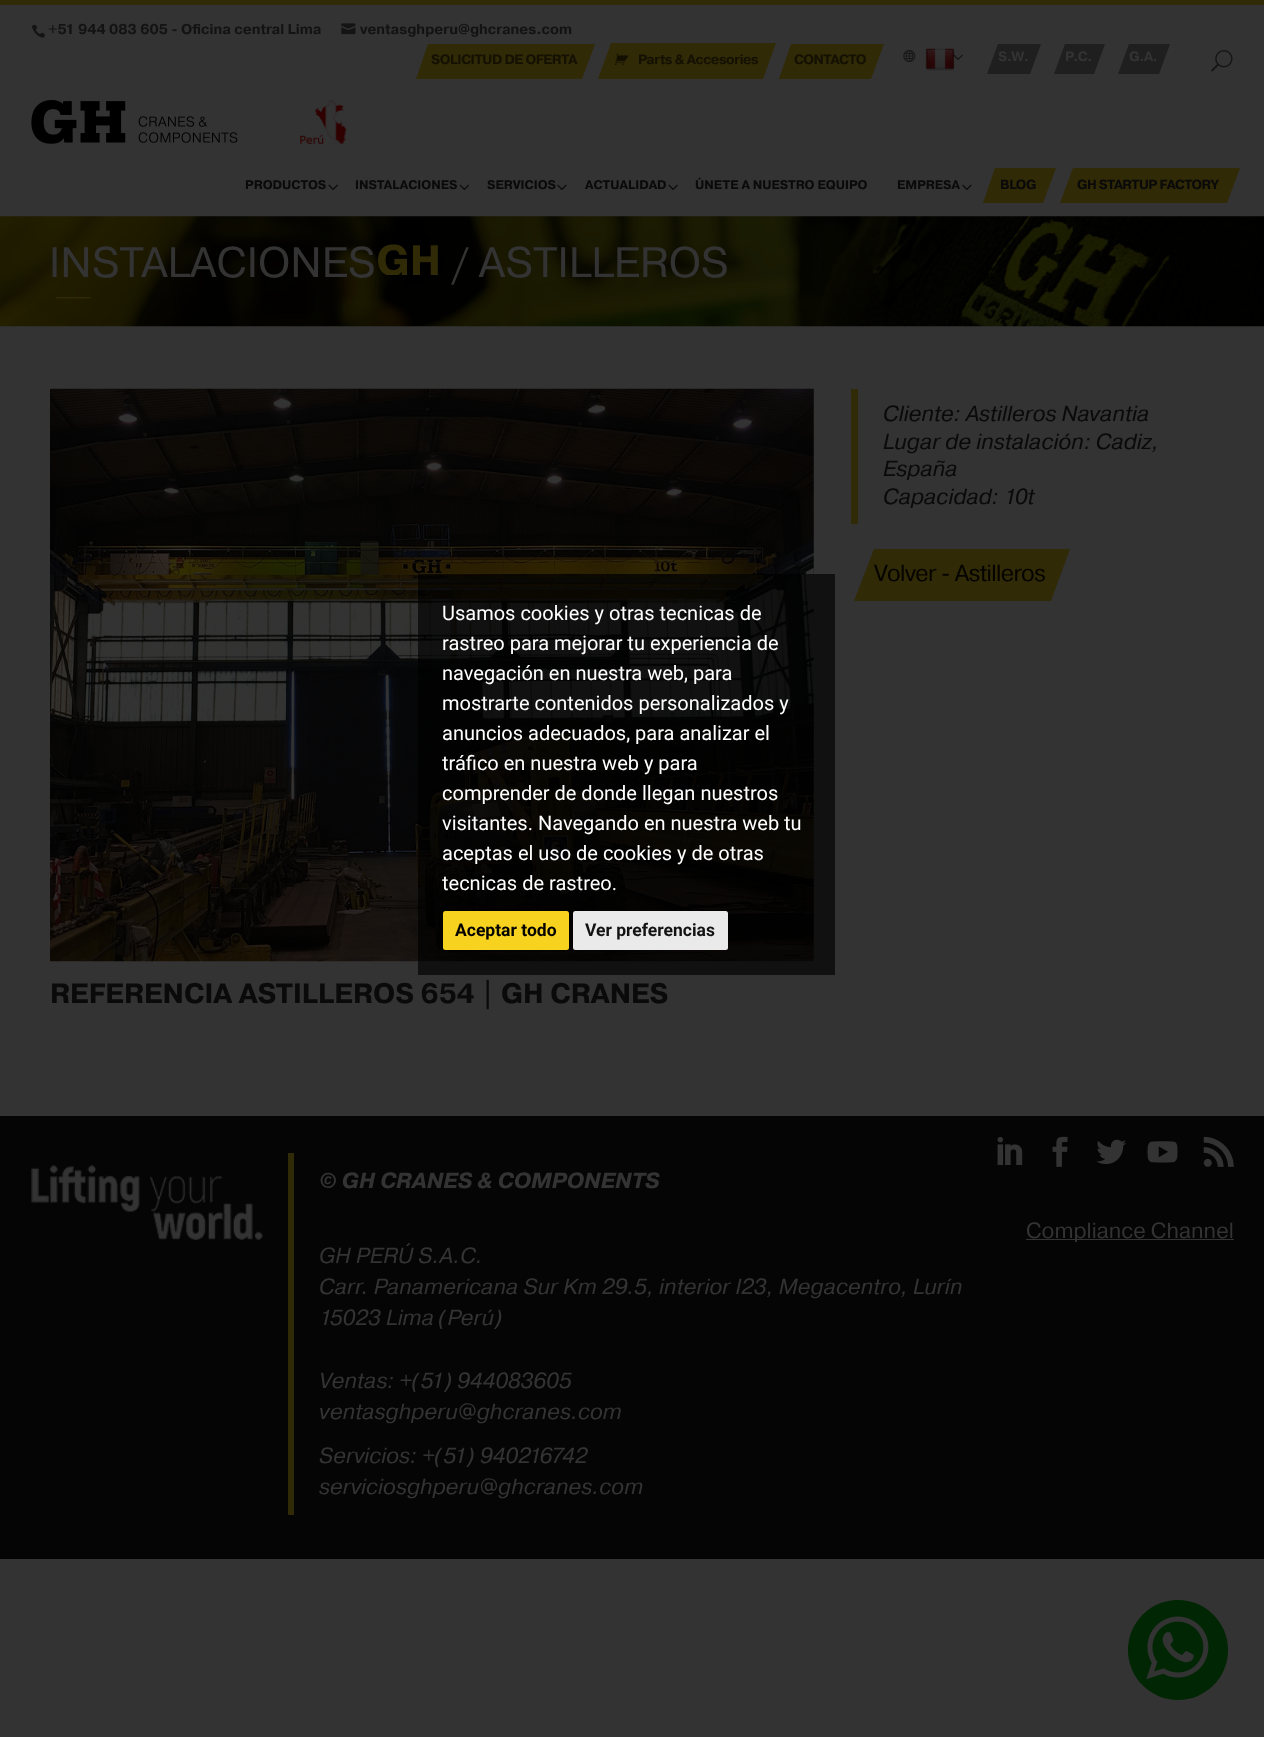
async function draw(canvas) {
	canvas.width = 1264;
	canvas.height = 1737;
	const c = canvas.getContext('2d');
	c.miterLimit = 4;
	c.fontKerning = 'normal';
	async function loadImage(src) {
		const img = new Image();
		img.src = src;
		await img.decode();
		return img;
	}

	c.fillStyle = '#333';
	c.fillRect(0, 0, 1264, 1737);
	c.fillStyle = '#312a06';
	c.fillRect(0, 0, 1264, 5);
	c.drawImage(await loadImage('img1.png'), 31, 24, 14, 14);
	c.font = 'bold 14.25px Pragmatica';
	c.fillStyle = '#131313';
	c.fillText('+51 944 083 605 - Oficina central Lima', 48, 34);
	c.drawImage(await loadImage('img2.png'), 341, 23, 15, 12);
	c.fillText('ventasghperu@ghcranes.com', 360, 34);
	c.fillStyle = '#312a06';
	c.beginPath();
	c.moveTo(428, 44);
	c.lineTo(595, 44);
	c.lineTo(582, 79);
	c.lineTo(416, 79);
	c.closePath();
	c.fill();
	c.letterSpacing = '-0.5px';
	c.font = 'bold 13.6px Pragmatica';
	c.fillStyle = '#141103';
	c.fillText('SOLICITUD DE OFERTA', 431, 64);
	c.fillStyle = '#312a06';
	c.beginPath();
	c.moveTo(611, 43);
	c.lineTo(776, 43);
	c.lineTo(763, 79);
	c.lineTo(598, 79);
	c.closePath();
	c.fill();
	c.drawImage(await loadImage('img3.png'), 614, 53, 15, 12);
	c.letterSpacing = '-0.4px';
	c.fillStyle = '#141103';
	c.fillText('Parts & Accesories', 638, 64);
	c.fillStyle = '#312a06';
	c.beginPath();
	c.moveTo(791, 44);
	c.lineTo(884, 44);
	c.lineTo(871, 79);
	c.lineTo(779, 79);
	c.closePath();
	c.fill();
	c.letterSpacing = '-0.6px';
	c.fillStyle = '#141103';
	c.fillText('CONTACTO', 794, 64);
	c.drawImage(await loadImage('img4.png'), 903, 50, 13, 12);
	c.drawImage(await loadImage('img5.png'), 925, 48, 30, 23);
	c.drawImage(await loadImage('img6.png'), 953, 54, 10, 6);
	c.fillStyle = '#1f1f1f';
	c.beginPath();
	c.moveTo(998, 44);
	c.lineTo(1041, 44);
	c.lineTo(1030, 74);
	c.lineTo(987, 74);
	c.closePath();
	c.fill();
	c.letterSpacing = '-0.5px';
	c.fillStyle = '#333';
	c.fillText('S.W.', 998, 61);
	c.fillStyle = '#1f1f1f';
	c.beginPath();
	c.moveTo(1065, 44);
	c.lineTo(1105, 44);
	c.lineTo(1094, 74);
	c.lineTo(1054, 74);
	c.closePath();
	c.fill();
	c.fillStyle = '#333';
	c.fillText('P.C.', 1065, 61);
	c.fillStyle = '#1f1f1f';
	c.beginPath();
	c.moveTo(1129, 44);
	c.lineTo(1170, 44);
	c.lineTo(1159, 74);
	c.lineTo(1118, 74);
	c.closePath();
	c.fill();
	c.fillStyle = '#333';
	c.fillText('G.A.', 1129, 61);
	c.drawImage(await loadImage('img7.png'), 1211, 50, 22, 22);
	c.drawImage(await loadImage('img8.png'), 31, 100, 207, 44);
	c.drawImage(await loadImage('img9.png'), 300, 100, 47, 44);
	c.letterSpacing = '0px';
	c.font = 'bold 12.5px Pragmatica';
	c.fillStyle = '#0a0a0a';
	c.fillText('PRODUCTOS', 245, 189);
	c.drawImage(await loadImage('img10.png'), 328, 184, 10, 6);
	c.fillText('INSTALACIONES', 355, 189);
	c.drawImage(await loadImage('img11.png'), 459, 184, 10, 6);
	c.fillText('SERVICIOS', 487, 189);
	c.drawImage(await loadImage('img12.png'), 557, 184, 10, 6);
	c.fillText('ACTUALIDAD', 585, 189);
	c.drawImage(await loadImage('img10.png'), 668, 184, 10, 6);
	c.fillText('ÚNETE A NUESTRO EQUIPO', 695, 189);
	c.fillText('EMPRESA', 897, 189);
	c.drawImage(await loadImage('img12.png'), 962, 184, 10, 6);
	c.fillStyle = '#312a06';
	c.beginPath();
	c.moveTo(995, 168);
	c.lineTo(1056, 168);
	c.lineTo(1043, 203);
	c.lineTo(983, 203);
	c.closePath();
	c.fill();
	c.letterSpacing = '-0.5px';
	c.font = 'bold 13.25px Pragmatica';
	c.fillStyle = '#0a0a0a';
	c.fillText('BLOG', 1000, 189);
	c.fillStyle = '#312a06';
	c.beginPath();
	c.moveTo(1073, 168);
	c.lineTo(1240, 168);
	c.lineTo(1227, 203);
	c.lineTo(1060, 203);
	c.closePath();
	c.fill();
	c.fillStyle = '#0a0a0a';
	c.fillText('GH STARTUP FACTORY', 1077, 189);
	c.drawImage(await loadImage('img13.png'), 0, 216, 1264, 111);
	c.letterSpacing = '0px';
	c.font = '42.5px Pragmatica';
	c.fillStyle = '#333';
	c.fillText('INSTALACIONES', 49, 277);
	c.drawImage(await loadImage('img14.png'), 378, 244, 60, 31);
	c.fillText('/ ASTILLEROS', 451, 277);
	c.font = '300 35px Pragmatica';
	c.fillStyle = '#312a06';
	c.fillText('__', 56, 292);
	c.fillRect(851, 389, 7, 135);
	c.font = 'italic 21.9px Pragmatica';
	c.fillStyle = '#0a0a0a';
	for (const [text, x, y] of [
		['Cliente: Astilleros Navantia', 883, 421],
		['Lugar de instalación: Cadiz,', 883, 449],
		['España', 883, 476],
		['Capacidad: 10t', 883, 504],
	]) {
		c.fillText(text, x, y);
	}
	c.fillStyle = '#312a06';
	c.beginPath();
	c.moveTo(874, 549);
	c.lineTo(1070, 549);
	c.lineTo(1051, 601);
	c.lineTo(854, 601);
	c.closePath();
	c.fill();
	c.letterSpacing = '-0.6px';
	c.font = '23.25px Pragmatica';
	c.fillStyle = '#050401';
	c.fillText('Volver - Astilleros', 874, 581);
	c.drawImage(await loadImage('img15.png'), 50, 388, 764, 574);
	c.letterSpacing = '0px';
	c.font = 'bold 28px Pragmatica';
	c.fillStyle = '#0a0a0a';
	c.fillText('REFERENCIA ASTILLEROS 654 | GH CRANES', 50, 1003);
	c.fillStyle = '#000000a6';
	c.fillRect(418, 574, 417, 401);
	c.font = '20px Roboto';
	c.fillStyle = '#fff';
	for (const [text, x, y] of [
		['Usamos cookies y otras tecnicas de', 442, 620],
		['rastreo para mejorar tu experiencia de', 442, 650],
		['navegación en nuestra web, para', 442, 680],
		['mostrarte contenidos personalizados y', 442, 710],
		['anuncios adecuados, para analizar el', 442, 740],
		['tráfico en nuestra web y para', 442, 770],
		['comprender de donde llegan nuestros', 442, 800],
		['visitantes. Navegando en nuestra web tu', 442, 830],
		['aceptas el uso de cookies y de otras', 442, 860],
		['tecnicas de rastreo.', 442, 890],
	]) {
		c.fillText(text, x, y);
	}
	c.fillStyle = '#f7d320';
	c.beginPath();
	c.roundRect(443, 911, 126, 39, 2.5);
	c.fill();
	c.font = 'bold 17.5px Roboto';
	c.fillStyle = '#050401';
	c.fillText('Aceptar todo', 455, 936);
	c.fillStyle = '#eaeaea';
	c.beginPath();
	c.roundRect(573, 911, 155, 39, 2.5);
	c.fill();
	c.fillStyle = '#131313';
	c.fillText('Ver preferencias', 585, 936);
	c.fillStyle = '#050505';
	c.fillRect(0, 1116, 1264, 443);
	c.drawImage(await loadImage('img16.png'), 997, 1136, 26, 29);
	c.drawImage(await loadImage('img17.png'), 1052, 1136, 16, 31);
	c.drawImage(await loadImage('img18.png'), 1096, 1139, 31, 26);
	c.drawImage(await loadImage('img19.png'), 1147, 1141, 31, 22);
	c.drawImage(await loadImage('img20.png'), 1203, 1136, 31, 31);
	c.drawImage(await loadImage('img21.png'), 31, 1165, 232, 75);
	c.fillStyle = '#312a06';
	c.fillRect(288, 1153, 6, 362);
	c.font = 'italic bold 21.9px Pragmatica';
	c.fillStyle = '#333';
	c.fillText('© GH CRANES & COMPONENTS', 319, 1188);
	c.font = 'italic 21.9px Pragmatica';
	for (const [text, x, y] of [
		['GH PERÚ S.A.C.', 319, 1263],
		['Carr. Panamericana Sur Km 29.5, interior I23, Megacentro, Lurín', 319, 1294],
		['15023 Lima (Perú)', 319, 1325],
		['Ventas: +(51) 944083605', 319, 1388],
		['ventasghperu@ghcranes.com', 319, 1419],
		['Servicios: +(51) 940216742', 319, 1463],
		['serviciosghperu@ghcranes.com', 319, 1494],
	]) {
		c.fillText(text, x, y);
	}
	c.fillRect(1026, 1239, 208, 1);
	c.font = '21.9px Pragmatica';
	c.fillText('Compliance Channel', 1026, 1238);
	c.fillStyle = '#002604';
	c.beginPath();
	c.arc(1178, 1650, 50, 0, 2 * Math.PI);
	c.fill();
	c.drawImage(await loadImage('img22.png'), 1146, 1616, 63, 64);
}

draw(document.querySelector('canvas'));
